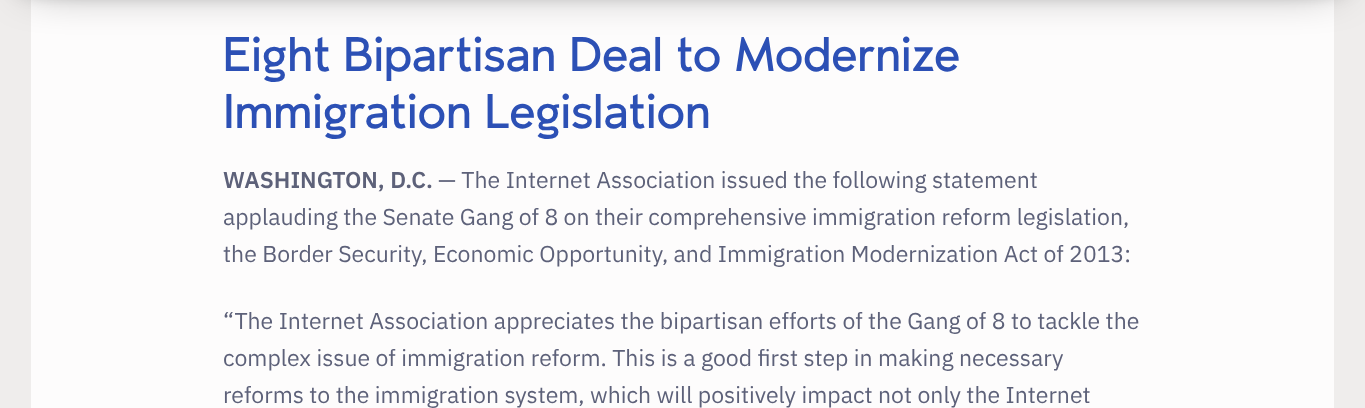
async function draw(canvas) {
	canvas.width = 1365;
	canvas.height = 408;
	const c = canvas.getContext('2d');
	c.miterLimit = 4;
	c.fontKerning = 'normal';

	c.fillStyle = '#efedec';
	c.fillRect(0, 0, 1365, 408);
	c.fillStyle = '#fdfcfc';
	c.fillRect(31, 0, 1303, 408);
	c.fillStyle = '#000';
	c.filter = 'blur(12.5px)';
	c.beginPath();
	c.rect(25, -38, 1315, 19);
	c.fill();
	c.filter = 'none';
	c.filter = 'blur(25px)';
	c.beginPath();
	c.rect(31, -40, 1303, 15);
	c.fill();
	c.filter = 'none';
	c.font = '500 47.75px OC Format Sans';
	c.fillStyle = '#2c50b5';
	c.fillText('Eight Bipartisan Deal to Modernize', 223, 71);
	c.fillText('Immigration Legislation', 223, 128);
	c.font = '600 23px IBM Plex Sans';
	c.fillStyle = '#5d6179';
	c.fillText('WASHINGTON, D.C.', 223, 188);
	c.font = '23px IBM Plex Sans';
	for (const [text, x, y] of [
		['— The Internet Association issued the following statement', 438, 188],
		['applauding the Senate Gang of 8 on their comprehensive immigration reform legislation,', 223, 225],
		['the Border Security, Economic Opportunity, and Immigration Modernization Act of 2013:', 223, 262],
		['“The Internet Association appreciates the bipartisan efforts of the Gang of 8 to tackle the', 223, 329],
		['complex issue of immigration reform. This is a good first step in making necessary', 223, 366],
		['reforms to the immigration system, which will positively impact not only the Internet', 223, 403],
	]) {
		c.fillText(text, x, y);
	}
}

draw(document.querySelector('canvas'));
